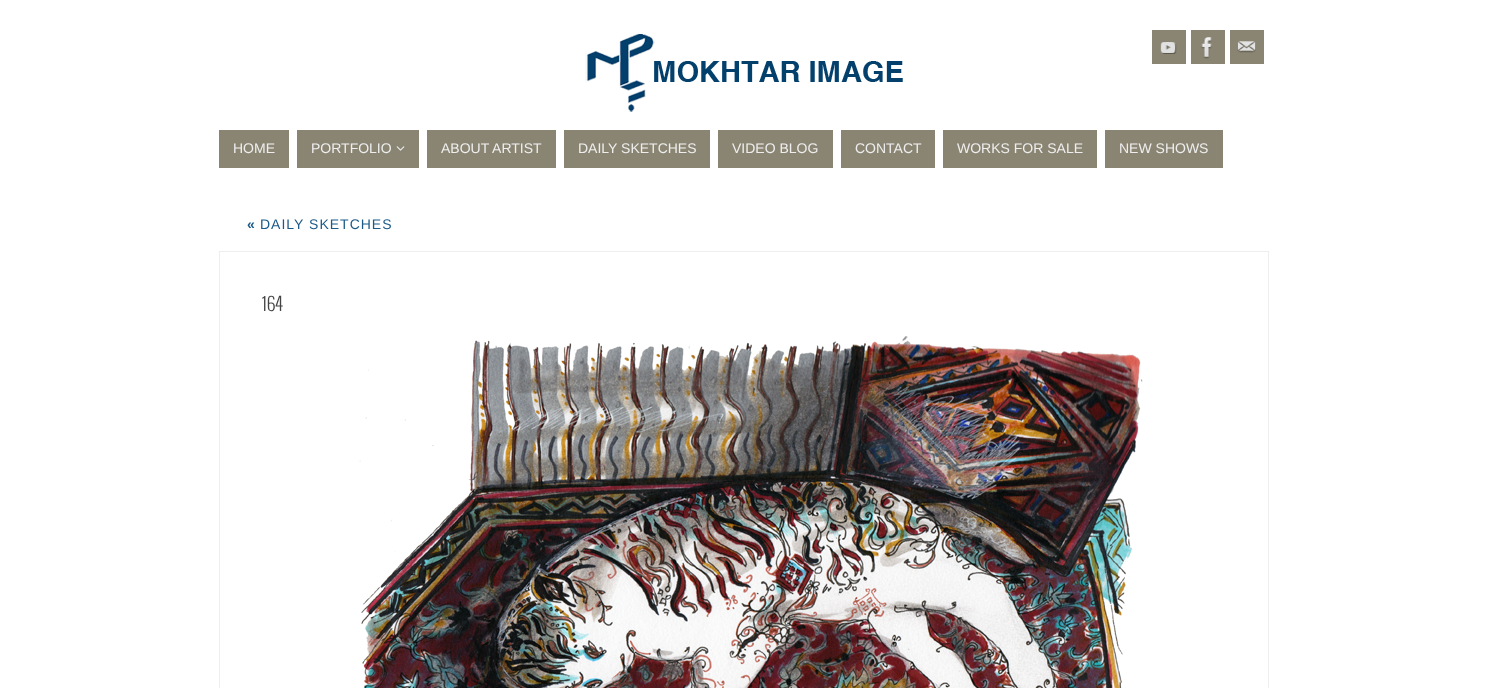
async function draw(canvas) {
	canvas.width = 1487;
	canvas.height = 688;
	const c = canvas.getContext('2d');
	c.miterLimit = 4;
	c.fontKerning = 'normal';
	async function loadImage(src) {
		const img = new Image();
		img.src = src;
		await img.decode();
		return img;
	}

	c.fillStyle = '#fff';
	c.fillRect(0, 0, 1487, 688);
	c.drawImage(await loadImage('img1.png'), 585, 32, 318, 80);
	c.fillStyle = '#8a8573';
	c.fillRect(1152, 30, 34, 34);
	c.drawImage(await loadImage('img2.png'), 1160, 42, 17, 12);
	c.fillRect(1191, 30, 34, 34);
	c.drawImage(await loadImage('img3.png'), 1201, 37, 11, 22);
	c.fillRect(1230, 30, 34, 34);
	c.drawImage(await loadImage('img4.png'), 1237, 41, 19, 12);
	c.fillRect(219, 130, 70, 38);
	c.font = '14px Liberation Sans';
	c.fillStyle = '#eee';
	c.fillText('HOME', 233, 153);
	c.fillStyle = '#8a8573';
	c.fillRect(297, 130, 122, 38);
	c.fillStyle = '#eee';
	c.fillText('PORTFOLIO', 311, 153);
	c.drawImage(await loadImage('img5.png'), 396, 146, 9, 5);
	c.fillStyle = '#8a8573';
	c.fillRect(427, 130, 129, 38);
	c.fillStyle = '#eee';
	c.fillText('ABOUT ARTIST', 441, 153);
	c.fillStyle = '#8a8573';
	c.fillRect(564, 130, 146, 38);
	c.fillStyle = '#eee';
	c.fillText('DAILY SKETCHES', 578, 153);
	c.fillStyle = '#8a8573';
	c.fillRect(718, 130, 115, 38);
	c.fillStyle = '#eee';
	c.fillText('VIDEO BLOG', 732, 153);
	c.fillStyle = '#8a8573';
	c.fillRect(841, 130, 94, 38);
	c.fillStyle = '#eee';
	c.fillText('CONTACT', 855, 153);
	c.fillStyle = '#8a8573';
	c.fillRect(943, 130, 154, 38);
	c.fillStyle = '#eee';
	c.fillText('WORKS FOR SALE', 957, 153);
	c.fillStyle = '#8a8573';
	c.fillRect(1105, 130, 118, 38);
	c.fillStyle = '#eee';
	c.fillText('NEW SHOWS', 1119, 153);
	c.letterSpacing = '1px';
	c.font = 'bold 14px Liberation Sans';
	c.fillStyle = '#1a5a88';
	c.fillText('«', 247, 229);
	c.font = '14px Liberation Sans';
	c.fillText('DAILY SKETCHES', 260, 229);
	c.strokeStyle = '#eee';
	c.strokeRect(219.5, 251.5, 1049, 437);
	c.letterSpacing = '0px';
	c.font = '300 18px Oswald';
	c.fillStyle = '#444';
	c.fillText('164', 262, 311);
	c.drawImage(await loadImage('img6.png'), 359, 336, 784, 352);
}

draw(document.querySelector('canvas'));
